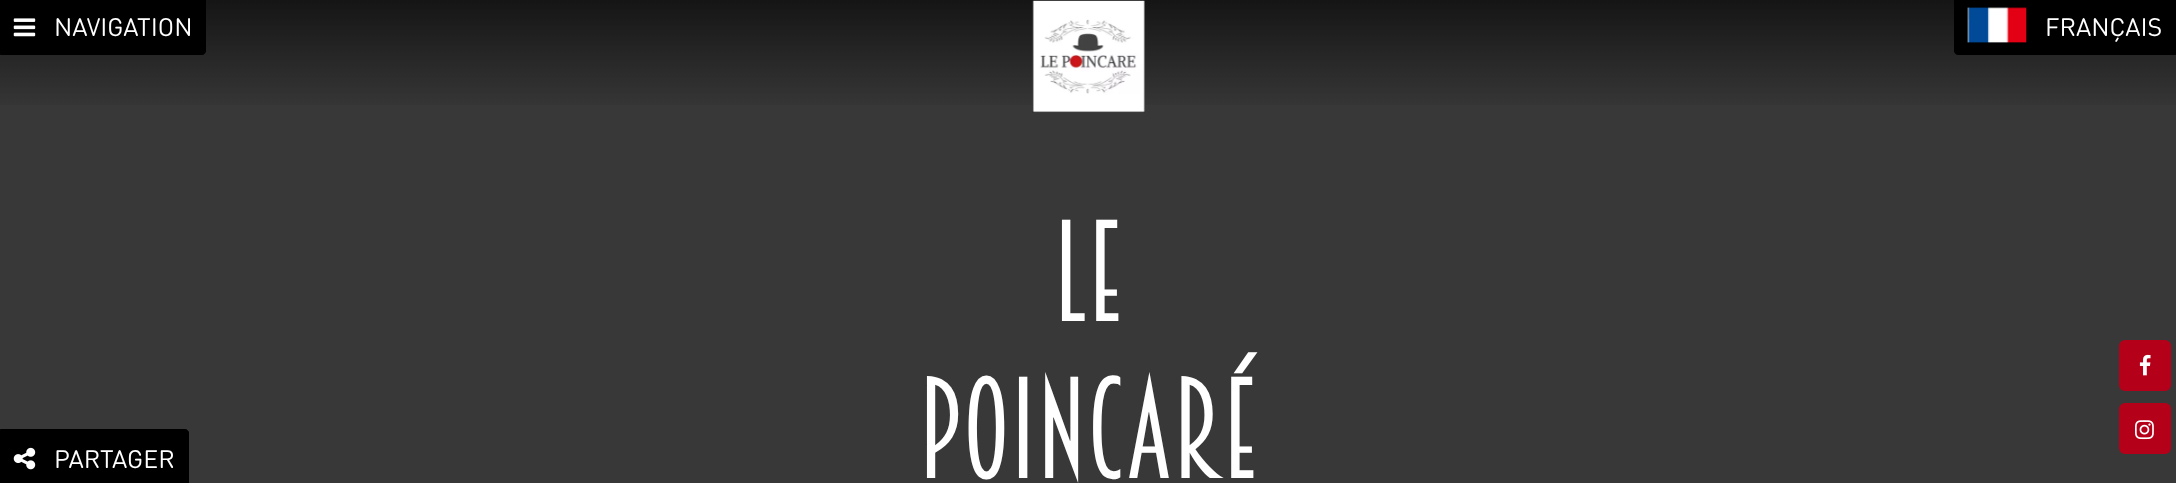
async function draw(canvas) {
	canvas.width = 2176;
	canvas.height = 483;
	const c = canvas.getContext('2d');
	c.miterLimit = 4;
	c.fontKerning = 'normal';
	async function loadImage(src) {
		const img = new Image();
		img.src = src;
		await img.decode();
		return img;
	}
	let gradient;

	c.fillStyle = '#383838';
	c.fillRect(0, 0, 2176, 483);
	gradient = c.createLinearGradient(1088, 113, 1088, 0);
	gradient.addColorStop(0, '#383838');
	gradient.addColorStop(1, '#151515');
	c.fillStyle = gradient;
	c.fillRect(0, 0, 2176, 105);
	c.drawImage(await loadImage('img1.png'), 1032, 0, 113, 113);
	c.fillStyle = '#000';
	c.beginPath();
	c.moveTo(0.5, -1.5);
	c.lineTo(205.5, -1.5);
	c.lineTo(205.5, 51);
	c.bezierCurveTo(205.5, 53, 204, 54.5, 202, 54.5);
	c.lineTo(0.5, 54.5);
	c.closePath();
	c.fill();
	c.strokeStyle = '#000';
	c.stroke();
	c.drawImage(await loadImage('img2.png'), 13, 18, 23, 19);
	c.font = '25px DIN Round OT';
	c.fillStyle = '#fff';
	c.fillText('NAVIGATION', 54, 36);
	c.fillStyle = '#000';
	c.beginPath();
	c.moveTo(1954.5, -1.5);
	c.lineTo(2175.5, -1.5);
	c.lineTo(2175.5, 54.5);
	c.lineTo(1958, 54.5);
	c.bezierCurveTo(1956, 54.5, 1954.5, 53, 1954.5, 51);
	c.closePath();
	c.fill();
	c.stroke();
	c.drawImage(await loadImage('img3.png'), 1967, 7, 60, 36);
	c.fillStyle = '#fff';
	c.fillText('FRANÇAIS', 2045, 36);
	c.fillStyle = '#000';
	c.beginPath();
	c.moveTo(0.5, 429.5);
	c.lineTo(185, 429.5);
	c.bezierCurveTo(187, 429.5, 188.5, 431, 188.5, 433);
	c.lineTo(188.5, 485.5);
	c.lineTo(0.5, 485.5);
	c.closePath();
	c.fill();
	c.stroke();
	c.drawImage(await loadImage('img4.png'), 13, 447, 23, 23);
	c.fillStyle = '#fff';
	c.fillText('PARTAGER', 54, 468);
	c.font = '130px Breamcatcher';
	c.fillText('Le', 1053, 321);
	c.fillText('Poincaré', 918, 478);
	c.fillStyle = '#b50019';
	c.beginPath();
	c.roundRect(2119, 340, 52, 51, 6);
	c.fill();
	c.drawImage(await loadImage('img5.png'), 2139, 354, 12, 22);
	c.beginPath();
	c.roundRect(2119, 403, 52, 51, 6);
	c.fill();
	c.drawImage(await loadImage('img6.png'), 2135, 420, 19, 20);
}

draw(document.querySelector('canvas'));
